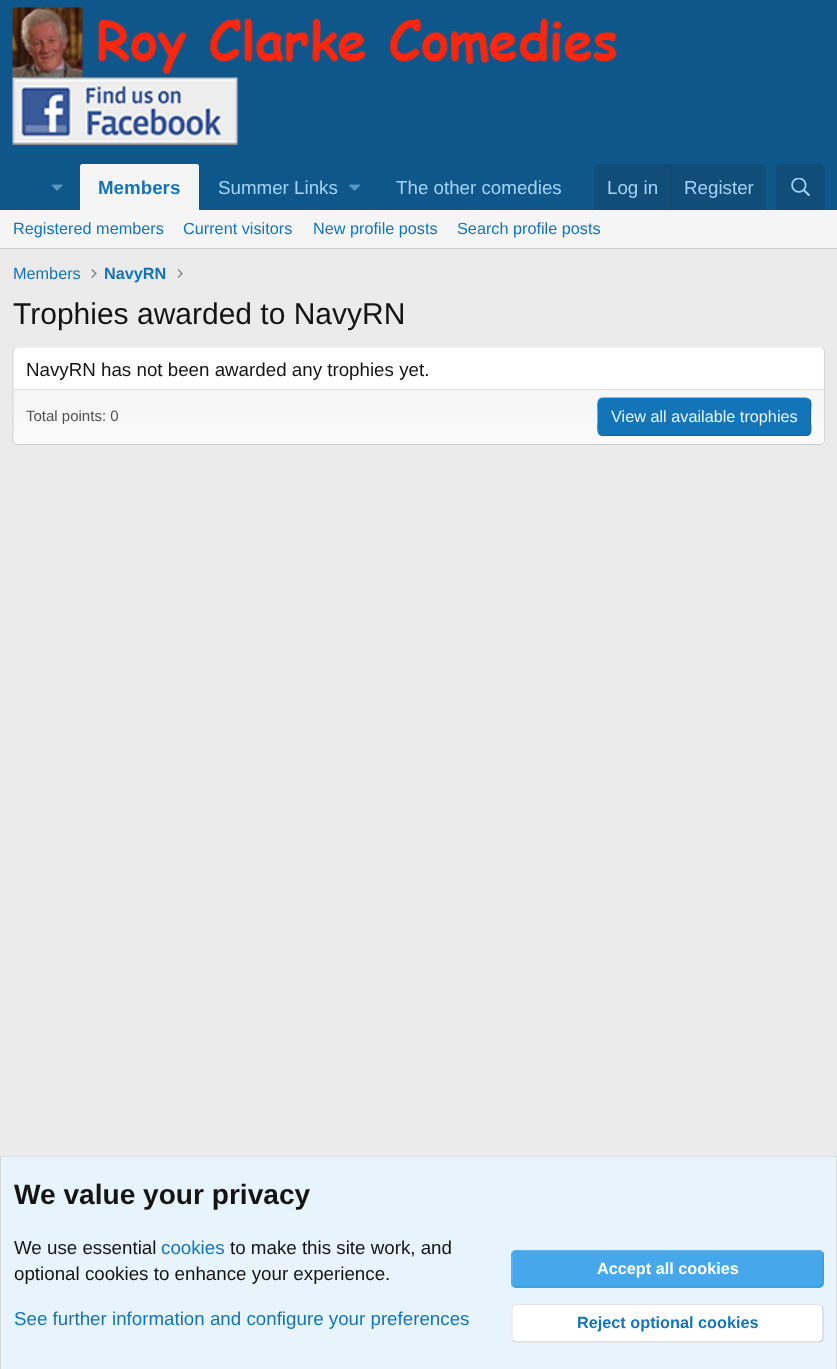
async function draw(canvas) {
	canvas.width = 837;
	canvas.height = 1369;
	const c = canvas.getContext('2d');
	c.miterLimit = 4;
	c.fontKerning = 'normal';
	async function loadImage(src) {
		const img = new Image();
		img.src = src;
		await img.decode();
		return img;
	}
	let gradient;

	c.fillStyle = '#ebebeb';
	c.fillRect(0, 0, 837, 1369);
	c.fillStyle = '#0f578a';
	c.fillRect(0, 0, 837, 159);
	c.drawImage(await loadImage('img1.png'), 12, 7, 605, 71);
	c.drawImage(await loadImage('img2.png'), 12, 77, 226, 68);
	c.fillRect(33, 159, 804, 51);
	gradient = c.createLinearGradient(0, 184, 50, 184);
	gradient.addColorStop(0.66, '#0f578a');
	gradient.addColorStop(1, '#0f578a00');
	c.fillStyle = gradient;
	c.fillRect(0, 159, 33, 51);
	c.drawImage(await loadImage('img3.png'), 51, 184, 12, 7);
	c.fillStyle = '#f5f5f5';
	c.beginPath();
	c.roundRect(80, 164, 119, 46, [2.5, 2.5, 0, 0]);
	c.fill();
	c.font = 'bold 18.75px Liberation Sans';
	c.fillStyle = '#1474b8';
	c.fillText('Members', 98, 194);
	c.font = '18.75px Liberation Sans';
	c.fillStyle = '#a3d4f5';
	c.fillText('Summer Links', 218, 194);
	c.drawImage(await loadImage('img4.png'), 349, 184, 11, 7);
	c.fillText('The other comedies', 396, 194);
	c.fillStyle = '#104d78';
	c.beginPath();
	c.roundRect(594, 164, 172, 46, [5, 5, 0, 0]);
	c.fill();
	c.fillStyle = '#a3d4f5';
	c.fillText('Log in', 607, 194);
	c.fillStyle = '#114469';
	c.fillRect(670, 164, 1, 46);
	c.fillStyle = '#a3d4f5';
	c.fillText('Register', 684, 194);
	c.fillStyle = '#104d78';
	c.beginPath();
	c.roundRect(776, 164, 49, 46, [5, 5, 0, 0]);
	c.fill();
	c.drawImage(await loadImage('img5.png'), 791, 178, 19, 18);
	c.fillStyle = '#f5f5f5';
	c.fillRect(0, 210, 837, 38);
	c.fillStyle = '#ccc';
	c.fillRect(0, 248, 837, 1);
	c.font = '16.25px Liberation Sans';
	c.fillStyle = '#1474b8';
	for (const [text, x, y] of [
		['Registered members', 13, 234],
		['Current visitors', 183, 234],
		['New profile posts', 313, 234],
		['Search profile posts', 457, 234],
		['Members', 13, 279],
	]) {
		c.fillText(text, x, y);
	}
	c.drawImage(await loadImage('img6.png'), 91, 269, 6, 9);
	c.font = 'bold 16.25px Liberation Sans';
	c.fillText('NavyRN', 104, 279);
	c.drawImage(await loadImage('img7.png'), 178, 269, 5, 9);
	c.font = '30px Liberation Sans';
	c.fillStyle = '#141414';
	c.fillText('Trophies awarded to NavyRN', 13, 324);
	c.fillStyle = '#fff';
	c.beginPath();
	c.roundRect(13, 346, 812, 99, 5);
	c.fill();
	c.beginPath();
	c.moveTo(14.5, 348);
	c.bezierCurveTo(15, 347.5, 16.5, 347, 17.5, 347);
	c.lineTo(820, 347);
	c.bezierCurveTo(821, 347, 822.5, 347.5, 823, 348);
	c.strokeStyle = '#e0e0e0';
	c.lineWidth = 1.2;
	c.stroke();
	c.beginPath();
	c.moveTo(823, 348);
	c.bezierCurveTo(824, 349, 824.5, 350, 824.5, 351);
	c.lineTo(824.5, 440);
	c.bezierCurveTo(824.5, 441, 824, 442.5, 823, 443);
	c.strokeStyle = '#d6d6d6';
	c.stroke();
	c.beginPath();
	c.moveTo(823, 443);
	c.bezierCurveTo(822.5, 444, 821, 444.5, 820, 444.5);
	c.lineTo(17.5, 444.5);
	c.bezierCurveTo(16.5, 444.5, 15, 444, 14.5, 443);
	c.strokeStyle = '#ccc';
	c.stroke();
	c.beginPath();
	c.moveTo(14.5, 443);
	c.bezierCurveTo(13.5, 442.5, 13, 441, 13, 440);
	c.lineTo(13, 351);
	c.bezierCurveTo(13, 350, 13.5, 349, 14.5, 348);
	c.strokeStyle = '#d6d6d6';
	c.stroke();
	c.font = '18.75px Liberation Sans';
	c.fillStyle = '#141414';
	c.fillText('NavyRN has not been awarded any trophies yet.', 26, 376);
	gradient = c.createLinearGradient(419, 390, 419, 444);
	gradient.addColorStop(0, '#f5f5f5');
	gradient.addColorStop(1, '#fafafa');
	c.fillStyle = gradient;
	c.beginPath();
	c.roundRect(14, 390, 810, 54, [0, 0, 4, 4]);
	c.fill();
	c.fillStyle = '#e0e0e0';
	c.fillRect(14, 389, 810, 1);
	c.font = '15px Liberation Sans';
	c.fillStyle = '#4f4f4f';
	c.fillText('Total points: 0', 26, 421);
	c.fillStyle = '#1474b8';
	c.beginPath();
	c.roundRect(598, 398, 213, 38, 5);
	c.fill();
	c.beginPath();
	c.moveTo(809.5, 399.5);
	c.bezierCurveTo(812, 402, 810.5, 409, 810.5, 412);
	c.lineTo(810.5, 421.5);
	c.bezierCurveTo(810.5, 425, 813, 435.5, 806, 435.5);
	c.lineTo(602.5, 435.5);
	c.lineTo(599.5, 434.5);
	c.strokeStyle = '#1265a1';
	c.stroke();
	c.beginPath();
	c.moveTo(599.5, 434.5);
	c.bezierCurveTo(596.5, 431.5, 598, 425, 598, 421.5);
	c.lineTo(598, 412);
	c.bezierCurveTo(598, 409, 596, 398, 602.5, 398);
	c.lineTo(806, 398);
	c.lineTo(809.5, 399.5);
	c.strokeStyle = '#1782cf';
	c.stroke();
	c.font = '16.25px Liberation Sans';
	c.fillStyle = '#e8f4fc';
	c.fillText('View all available trophies', 611, 422);
	for (const [x, y, w, h, color] of [
		[1, 1157, 835, 212, '#e8f4fc'],
		[0, 1156, 837, 1, '#e0e0e0'],
		[836, 1156, 1, 213, '#d6d6d6'],
		[0, 1156, 1, 213, '#d6d6d6'],
	]) {
		c.fillStyle = color;
		c.fillRect(x, y, w, h);
	}
	c.font = 'bold 28.1px Liberation Sans';
	c.fillStyle = '#141414';
	c.fillText('We value your privacy', 14, 1204);
	c.font = '18.75px Liberation Sans';
	c.fillText('We use essential', 14, 1254);
	c.fillStyle = '#1474b8';
	c.fillText('cookies', 161, 1254);
	c.fillStyle = '#141414';
	c.fillText('to make this site work, and', 230, 1254);
	c.fillText('optional cookies to enhance your experience.', 14, 1280);
	c.fillStyle = '#1474b8';
	c.fillText('See further information and configure your preferences', 14, 1325);
	c.fillStyle = '#47a7eb';
	c.beginPath();
	c.roundRect(511, 1250, 313, 38, 5);
	c.fill();
	c.beginPath();
	c.moveTo(822, 1252);
	c.bezierCurveTo(822.5, 1252.5, 823, 1254, 823, 1255);
	c.lineTo(823, 1282.5);
	c.bezierCurveTo(823, 1283.5, 822.5, 1285, 822, 1285.5);
	c.bezierCurveTo(821, 1286.5, 820, 1287, 819, 1287);
	c.lineTo(516, 1287);
	c.bezierCurveTo(515, 1287, 514, 1286.5, 513, 1285.5);
	c.strokeStyle = '#309ce8';
	c.stroke();
	c.beginPath();
	c.moveTo(513, 1285.5);
	c.bezierCurveTo(512.5, 1285, 512, 1283.5, 512, 1282.5);
	c.lineTo(512, 1255);
	c.bezierCurveTo(512, 1254, 512.5, 1252.5, 513, 1252);
	c.bezierCurveTo(514, 1251, 515, 1250.5, 516, 1250.5);
	c.lineTo(819, 1250.5);
	c.bezierCurveTo(820, 1250.5, 821, 1251, 822, 1252);
	c.strokeStyle = '#5eb2ed';
	c.stroke();
	c.font = 'bold 16.25px Liberation Sans';
	c.fillStyle = '#fff';
	c.fillText('Accept all cookies', 597, 1274);
	c.beginPath();
	c.roundRect(511, 1304, 313, 39, 5);
	c.fill();
	c.beginPath();
	c.moveTo(822, 1305.5);
	c.bezierCurveTo(822.5, 1306.5, 823, 1307.5, 823, 1309);
	c.lineTo(823, 1337.5);
	c.bezierCurveTo(823, 1338.5, 822.5, 1340, 822, 1340.5);
	c.bezierCurveTo(821, 1341.5, 820, 1342, 819, 1342);
	c.lineTo(516, 1342);
	c.bezierCurveTo(515, 1342, 514, 1341.5, 513, 1340.5);
	c.strokeStyle = '#c9c9c9';
	c.stroke();
	c.beginPath();
	c.moveTo(513, 1340.5);
	c.bezierCurveTo(512.5, 1340, 512, 1338.5, 512, 1337.5);
	c.lineTo(512, 1309);
	c.bezierCurveTo(512, 1307.5, 512.5, 1306.5, 513, 1305.5);
	c.bezierCurveTo(514, 1305, 515, 1304.5, 516, 1304.5);
	c.lineTo(819, 1304.5);
	c.bezierCurveTo(820, 1304.5, 821, 1305, 822, 1305.5);
	c.strokeStyle = '#e3e3e3';
	c.stroke();
	c.fillStyle = '#1474b8';
	c.fillText('Reject optional cookies', 577, 1328);
}

draw(document.querySelector('canvas'));
